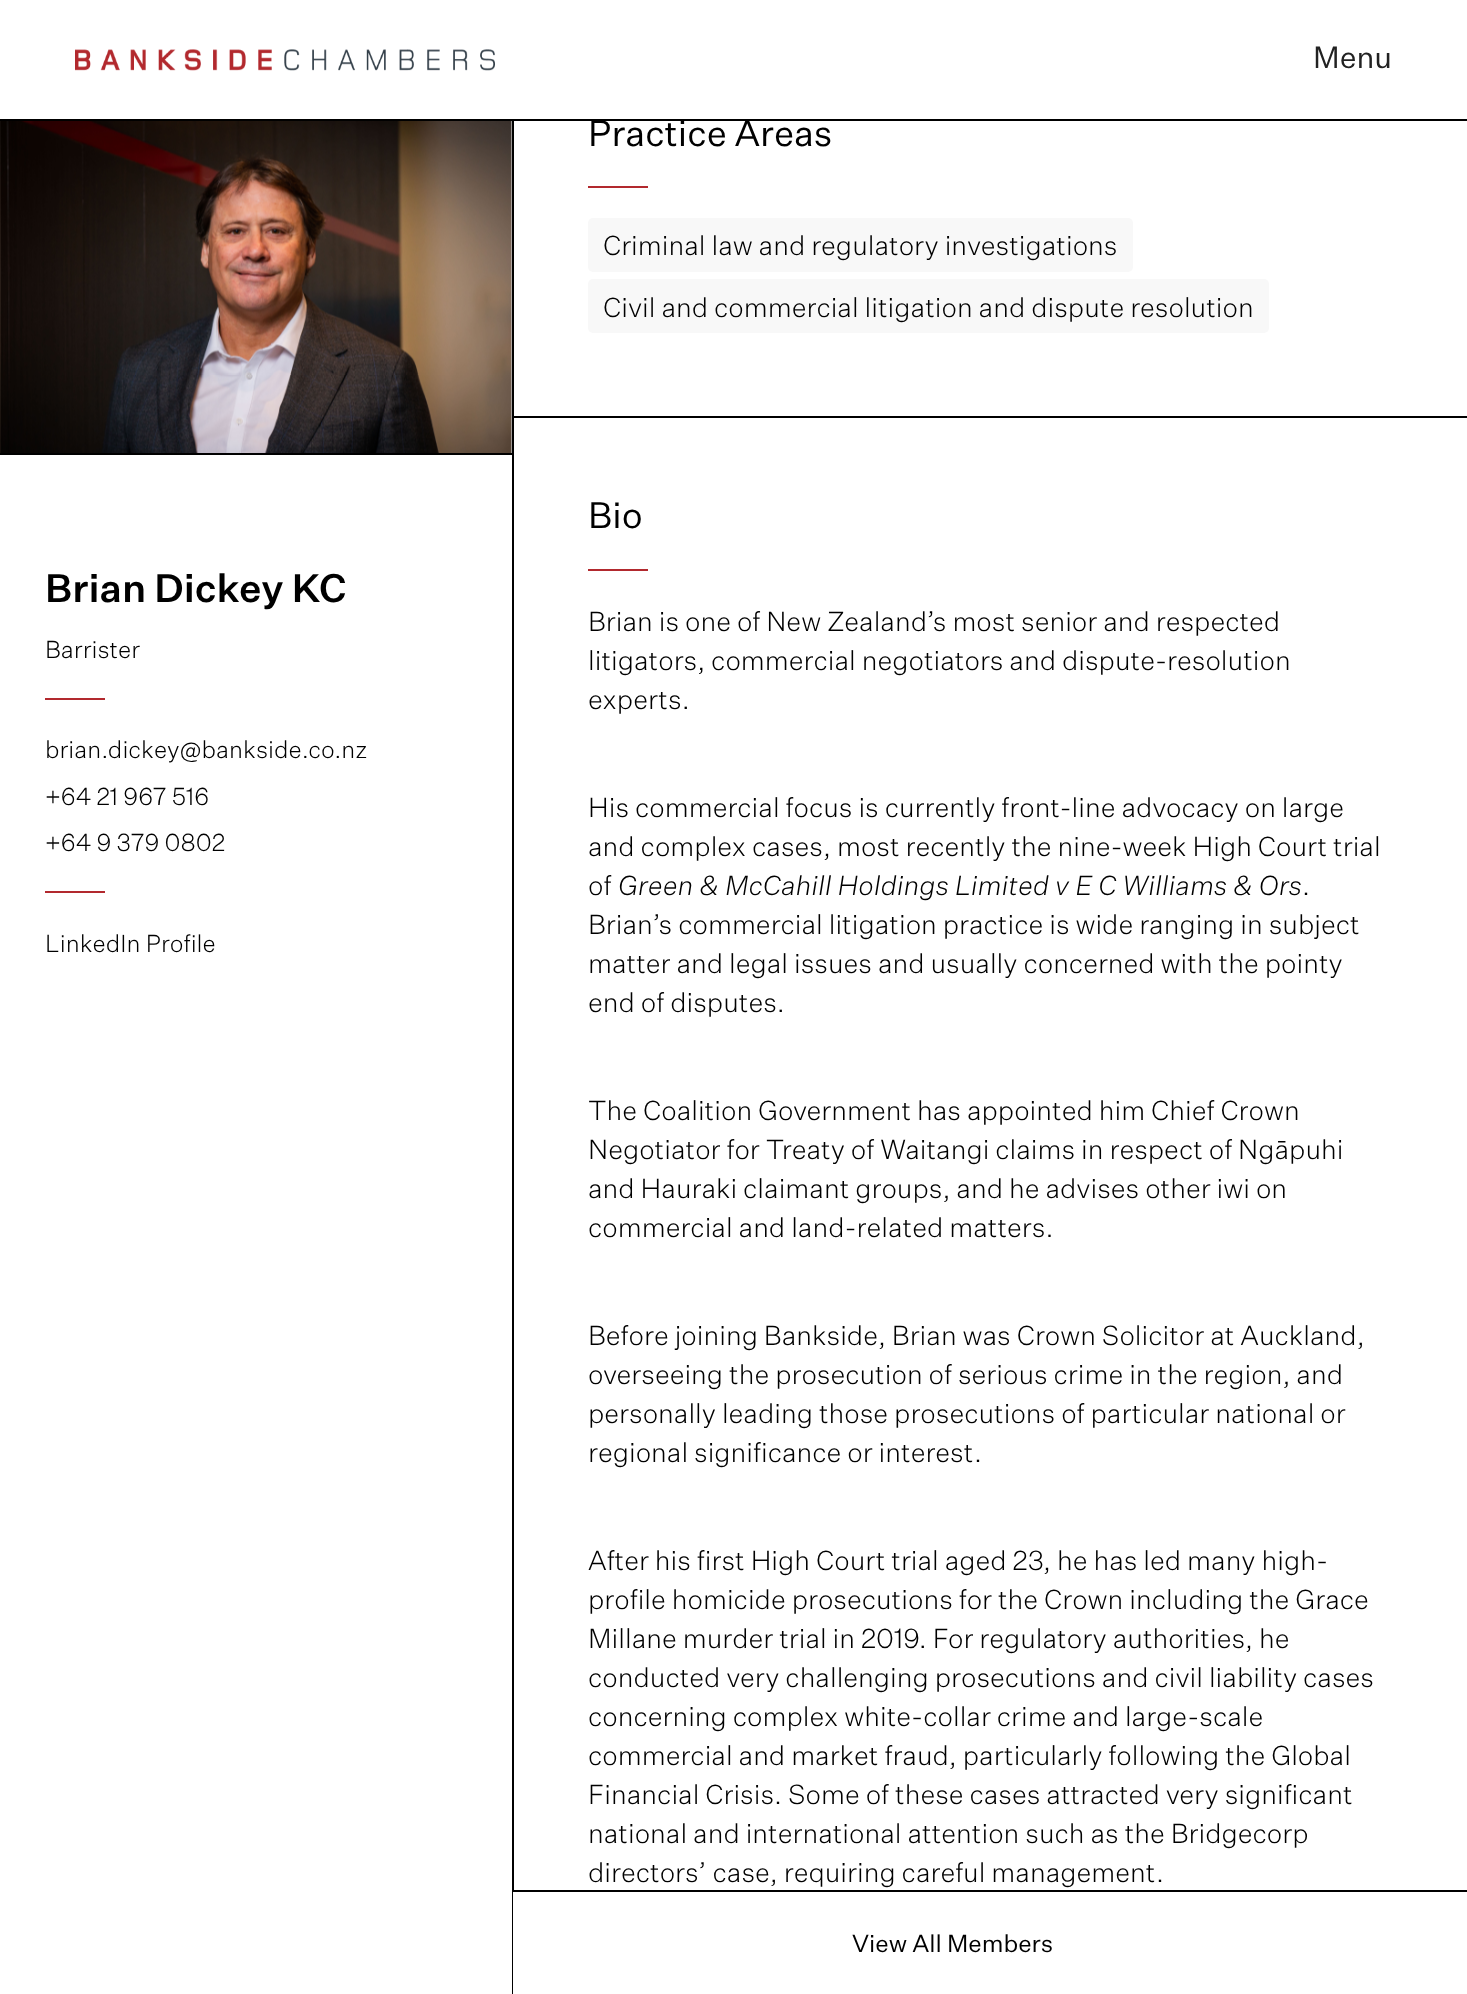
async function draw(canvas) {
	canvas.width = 1467;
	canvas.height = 1994;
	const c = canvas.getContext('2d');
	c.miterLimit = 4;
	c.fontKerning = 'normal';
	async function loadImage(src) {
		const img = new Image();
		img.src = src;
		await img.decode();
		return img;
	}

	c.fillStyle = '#fff';
	c.fillRect(0, 0, 1467, 1994);
	c.fillStyle = '#000';
	c.fillRect(0, 119, 1467, 2);
	c.drawImage(await loadImage('img1.png'), 75, 49, 420, 22);
	c.font = '30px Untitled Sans';
	c.fillStyle = '#222';
	c.fillText('Menu', 1313, 68);
	c.fillStyle = '#000';
	c.fillRect(512, 121, 2, 1769);
	c.drawImage(await loadImage('img2.png'), 0, 121, 512, 332);
	c.fillRect(0, 453, 512, 2);
	c.font = '500 39px Untitled Sans';
	c.fillText('Brian Dickey KC', 45, 602);
	c.font = '300 24px Untitled Sans';
	c.fillText('Barrister', 45, 658);
	c.fillStyle = '#b2292e';
	c.fillRect(45, 698, 60, 2);
	c.fillStyle = '#000';
	for (const [text, x, y] of [
		['brian.dickey@bankside.co.nz', 45, 758],
		['+64 21 967 516', 45, 805],
		['+64 9 379 0802', 45, 851],
	]) {
		c.fillText(text, x, y);
	}
	c.fillStyle = '#b2292e';
	c.fillRect(45, 891, 60, 2);
	c.fillStyle = '#000';
	c.fillText('LinkedIn Profile', 45, 952);
	c.fillRect(513, 416, 954, 2);
	c.font = '36px Untitled Sans';
	c.fillText('Practice Areas', 588, 146);
	c.fillStyle = '#b2292e';
	c.fillRect(588, 186, 60, 2);
	c.fillStyle = '#f8f8f8';
	c.beginPath();
	c.roundRect(588, 218, 545, 54, 5);
	c.fill();
	c.font = '300 27px Untitled Sans';
	c.fillStyle = '#000';
	c.fillText('Criminal law and regulatory investigations', 603, 255);
	c.fillStyle = '#f8f8f8';
	c.beginPath();
	c.roundRect(588, 279, 681, 54, 5);
	c.fill();
	c.fillStyle = '#000';
	c.fillText('Civil and commercial litigation and dispute resolution', 603, 317);
	c.font = '36px Untitled Sans';
	c.fillText('Bio', 588, 528);
	c.fillStyle = '#b2292e';
	c.fillRect(588, 569, 60, 2);
	c.font = '300 27px Untitled Sans';
	c.fillStyle = '#000';
	for (const [text, x, y] of [
		['Brian is one of New Zealand’s most senior and respected', 588, 631],
		['litigators, commercial negotiators and dispute-resolution', 588, 670],
		['experts.', 588, 709],
		['His commercial focus is currently front-line advocacy on large', 588, 817],
		['and complex cases, most recently the nine-week High Court trial', 588, 856],
		['of', 588, 895],
	]) {
		c.fillText(text, x, y);
	}
	c.font = 'italic 300 27px Untitled Sans';
	c.fillText('Green & McCahill Holdings Limited v E C Williams & Ors', 618, 895);
	c.font = '300 27px Untitled Sans';
	for (const [text, x, y] of [
		['.', 1302, 895],
		['Brian’s commercial litigation practice is wide ranging in subject', 588, 934],
		['matter and legal issues and usually concerned with the pointy', 588, 973],
		['end of disputes.', 588, 1012],
		['The Coalition Government has appointed him Chief Crown', 588, 1120],
		['Negotiator for Treaty of Waitangi claims in respect of Ngāpuhi', 588, 1159],
		['and Hauraki claimant groups, and he advises other iwi on', 588, 1198],
		['commercial and land-related matters.', 588, 1237],
		['Before joining Bankside, Brian was Crown Solicitor at Auckland,', 588, 1345],
		['overseeing the prosecution of serious crime in the region, and', 588, 1384],
		['personally leading those prosecutions of particular national or', 588, 1423],
		['regional significance or interest.', 588, 1462],
		['After his first High Court trial aged 23, he has led many high-', 588, 1570],
		['profile homicide prosecutions for the Crown including the Grace', 588, 1609],
		['Millane murder trial in 2019. For regulatory authorities, he', 588, 1648],
		['conducted very challenging prosecutions and civil liability cases', 588, 1687],
		['concerning complex white-collar crime and large-scale', 588, 1726],
		['commercial and market fraud, particularly following the Global', 588, 1765],
		['Financial Crisis. Some of these cases attracted very significant', 588, 1804],
		['national and international attention such as the Bridgecorp', 588, 1843],
		['directors’ case, requiring careful management.', 588, 1882],
	]) {
		c.fillText(text, x, y);
	}
	c.fillRect(512, 1890, 1, 104);
	c.fillRect(513, 1890, 954, 2);
	c.font = '24px Untitled Sans';
	c.fillText('View All Members', 852, 1952);
}

draw(document.querySelector('canvas'));
